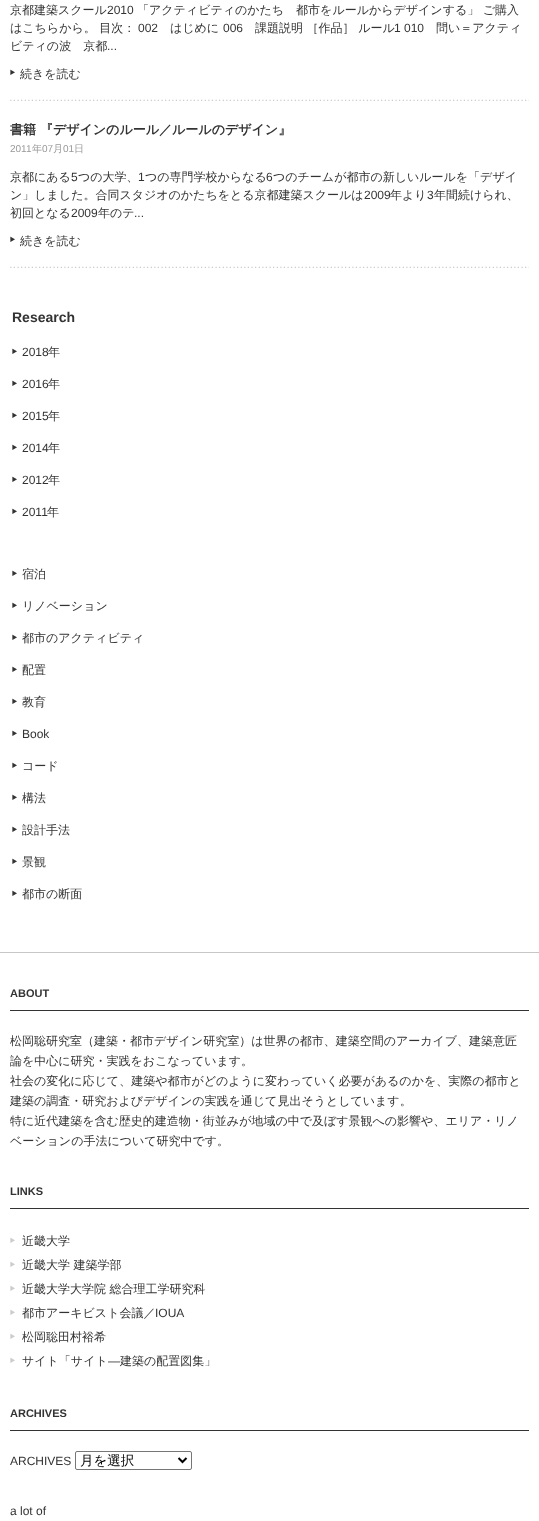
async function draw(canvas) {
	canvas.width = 539;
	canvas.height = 1521;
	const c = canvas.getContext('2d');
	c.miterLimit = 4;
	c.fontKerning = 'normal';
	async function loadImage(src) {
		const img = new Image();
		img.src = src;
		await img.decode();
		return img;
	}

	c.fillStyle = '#fff';
	c.fillRect(0, 0, 539, 1521);
	c.drawImage(await loadImage('img1.png'), 10, 99, 519, 2);
	c.font = '500 12px WenQuanYi Zen Hei';
	c.fillStyle = '#333';
	c.fillText('京都建築スクール', 10, 14);
	c.font = '12px Liberation Sans';
	c.fillText('2010', 107, 14);
	c.font = '500 12px WenQuanYi Zen Hei';
	c.fillText('「アクティビティのかたち　都市をルールからデザインする」 ご購入', 137, 14);
	c.fillText('はこちらから。 目次：', 10, 32);
	c.font = '12px Liberation Sans';
	c.fillText('002', 138, 32);
	c.font = '500 12px WenQuanYi Zen Hei';
	c.fillText('はじめに', 170, 32);
	c.font = '12px Liberation Sans';
	c.fillText('006', 223, 32);
	c.font = '500 12px WenQuanYi Zen Hei';
	c.fillText('課題説明 ［作品］ ルール', 255, 32);
	c.font = '12px Liberation Sans';
	c.fillText('1 010', 394, 32);
	c.font = '500 12px WenQuanYi Zen Hei';
	c.fillText('問い＝アクティ', 436, 32);
	c.fillText('ビティの波　京都', 10, 50);
	c.font = '12px Liberation Sans';
	c.fillText('...', 107, 50);
	c.drawImage(await loadImage('img2.png'), 10, 69, 5, 6);
	c.font = '500 12px WenQuanYi Zen Hei';
	c.fillText('続きを読む', 20, 78);
	c.drawImage(await loadImage('img1.png'), 10, 266, 519, 2);
	c.font = 'bold 13px WenQuanYi Zen Hei';
	c.fillText('書籍 『デザインのルール／ルールのデザイン』', 10, 134);
	c.font = '10px Liberation Sans';
	c.fillStyle = '#999';
	c.fillText('2011', 10, 152);
	c.font = '500 10px WenQuanYi Zen Hei';
	c.fillText('年', 32, 152);
	c.font = '10px Liberation Sans';
	c.fillText('07', 42, 152);
	c.font = '500 10px WenQuanYi Zen Hei';
	c.fillText('月', 53, 152);
	c.font = '10px Liberation Sans';
	c.fillText('01', 63, 152);
	c.font = '500 10px WenQuanYi Zen Hei';
	c.fillText('日', 74, 152);
	c.font = '500 12px WenQuanYi Zen Hei';
	c.fillStyle = '#333';
	c.fillText('京都にある', 10, 181);
	c.font = '12px Liberation Sans';
	c.fillText('5', 71, 181);
	c.font = '500 12px WenQuanYi Zen Hei';
	c.fillText('つの大学、', 78, 181);
	c.font = '12px Liberation Sans';
	c.fillText('1', 138, 181);
	c.font = '500 12px WenQuanYi Zen Hei';
	c.fillText('つの専門学校からなる', 145, 181);
	c.font = '12px Liberation Sans';
	c.fillText('6', 266, 181);
	c.font = '500 12px WenQuanYi Zen Hei';
	c.fillText('つのチームが都市の新しいルールを「デザイ', 273, 181);
	c.fillText('ン」しました。合同スタジオのかたちをとる京都建築スクールは', 10, 199);
	c.font = '12px Liberation Sans';
	c.fillText('2009', 364, 199);
	c.font = '500 12px WenQuanYi Zen Hei';
	c.fillText('年より', 390, 199);
	c.font = '12px Liberation Sans';
	c.fillText('3', 427, 199);
	c.font = '500 12px WenQuanYi Zen Hei';
	c.fillText('年間続けられ、', 434, 199);
	c.fillText('初回となる', 10, 217);
	c.font = '12px Liberation Sans';
	c.fillText('2009', 71, 217);
	c.font = '500 12px WenQuanYi Zen Hei';
	c.fillText('年のテ', 98, 217);
	c.font = '12px Liberation Sans';
	c.fillText('...', 134, 217);
	c.drawImage(await loadImage('img2.png'), 10, 236, 5, 6);
	c.font = '500 12px WenQuanYi Zen Hei';
	c.fillText('続きを読む', 20, 245);
	c.font = 'bold 14px Liberation Sans';
	c.fillText('Research', 12, 322);
	c.drawImage(await loadImage('img2.png'), 12, 348, 5, 6);
	c.font = '12px Liberation Sans';
	c.fillText('2018', 22, 356);
	c.font = '500 12px WenQuanYi Zen Hei';
	c.fillText('年', 48, 356);
	c.drawImage(await loadImage('img2.png'), 12, 380, 5, 6);
	c.font = '12px Liberation Sans';
	c.fillText('2016', 22, 388);
	c.font = '500 12px WenQuanYi Zen Hei';
	c.fillText('年', 48, 388);
	c.drawImage(await loadImage('img2.png'), 12, 412, 5, 6);
	c.font = '12px Liberation Sans';
	c.fillText('2015', 22, 420);
	c.font = '500 12px WenQuanYi Zen Hei';
	c.fillText('年', 48, 420);
	c.drawImage(await loadImage('img2.png'), 12, 444, 5, 6);
	c.font = '12px Liberation Sans';
	c.fillText('2014', 22, 452);
	c.font = '500 12px WenQuanYi Zen Hei';
	c.fillText('年', 48, 452);
	c.drawImage(await loadImage('img2.png'), 12, 476, 5, 6);
	c.font = '12px Liberation Sans';
	c.fillText('2012', 22, 484);
	c.font = '500 12px WenQuanYi Zen Hei';
	c.fillText('年', 48, 484);
	c.drawImage(await loadImage('img2.png'), 12, 508, 5, 6);
	c.font = '12px Liberation Sans';
	c.fillText('2011', 22, 516);
	c.font = '500 12px WenQuanYi Zen Hei';
	c.fillText('年', 47, 516);
	c.drawImage(await loadImage('img2.png'), 12, 570, 5, 6);
	c.fillText('宿泊', 22, 578);
	c.drawImage(await loadImage('img2.png'), 12, 602, 5, 6);
	c.fillText('リノベーション', 22, 610);
	c.drawImage(await loadImage('img2.png'), 12, 634, 5, 6);
	c.fillText('都市のアクティビティ', 22, 642);
	c.drawImage(await loadImage('img2.png'), 12, 666, 5, 6);
	c.fillText('配置', 22, 674);
	c.drawImage(await loadImage('img2.png'), 12, 698, 5, 6);
	c.fillText('教育', 22, 706);
	c.drawImage(await loadImage('img2.png'), 12, 730, 5, 6);
	c.font = '12px Liberation Sans';
	c.fillText('Book', 22, 738);
	c.drawImage(await loadImage('img2.png'), 12, 762, 5, 6);
	c.font = '500 12px WenQuanYi Zen Hei';
	c.fillText('コード', 22, 770);
	c.drawImage(await loadImage('img2.png'), 12, 794, 5, 6);
	c.fillText('構法', 22, 802);
	c.drawImage(await loadImage('img2.png'), 12, 826, 5, 6);
	c.fillText('設計手法', 22, 834);
	c.drawImage(await loadImage('img2.png'), 12, 858, 5, 6);
	c.fillText('景観', 22, 866);
	c.drawImage(await loadImage('img2.png'), 12, 890, 5, 6);
	c.fillText('都市の断面', 22, 898);
	c.fillStyle = '#c7c7c7';
	c.fillRect(0, 952, 539, 1);
	c.fillStyle = '#333';
	c.fillRect(10, 1010, 519, 1);
	c.font = 'bold 11px Liberation Sans';
	c.fillText('ABOUT', 10, 997);
	c.font = '500 12px WenQuanYi Zen Hei';
	for (const [text, x, y] of [
		['松岡聡研究室（建築・都市デザイン研究室）は世界の都市、建築空間のアーカイブ、建築意匠', 10, 1045],
		['論を中心に研究・実践をおこなっています。', 10, 1065],
		['社会の変化に応じて、建築や都市がどのように変わっていく必要があるのかを、実際の都市と', 10, 1085],
		['建築の調査・研究およびデザインの実践を通じて見出そうとしています。', 10, 1105],
		['特に近代建築を含む歴史的建造物・街並みが地域の中で及ぼす景観への影響や、エリア・リノ', 10, 1125],
		['ベーションの手法について研究中です。', 10, 1145],
	]) {
		c.fillText(text, x, y);
	}
	c.fillRect(10, 1208, 519, 1);
	c.font = 'bold 11px Liberation Sans';
	c.fillText('LINKS', 10, 1195);
	c.drawImage(await loadImage('img3.png'), 10, 1237, 5, 6);
	c.font = '500 12px WenQuanYi Zen Hei';
	c.fillText('近畿大学', 22, 1245);
	c.drawImage(await loadImage('img3.png'), 10, 1261, 5, 6);
	c.fillText('近畿大学 建築学部', 22, 1269);
	c.drawImage(await loadImage('img3.png'), 10, 1285, 5, 6);
	c.fillText('近畿大学大学院 総合理工学研究科', 22, 1293);
	c.drawImage(await loadImage('img3.png'), 10, 1309, 5, 6);
	c.fillText('都市アーキビスト会議／', 22, 1317);
	c.font = '12px Liberation Sans';
	c.fillText('IOUA', 155, 1317);
	c.drawImage(await loadImage('img3.png'), 10, 1333, 5, 6);
	c.font = '500 12px WenQuanYi Zen Hei';
	c.fillText('松岡聡田村裕希', 22, 1341);
	c.drawImage(await loadImage('img3.png'), 10, 1357, 5, 6);
	c.fillText('サイト「サイト', 22, 1365);
	c.font = '12px Liberation Sans';
	c.fillText('―', 108, 1365);
	c.font = '500 12px WenQuanYi Zen Hei';
	c.fillText('建築の配置図集」', 120, 1365);
	c.fillRect(10, 1430, 519, 1);
	c.font = 'bold 11px Liberation Sans';
	c.fillText('ARCHIVES', 10, 1417);
	c.font = '12px Liberation Sans';
	c.fillText('ARCHIVES', 10, 1465);
	c.beginPath();
	c.roundRect(75.5, 1451.5, 116, 18, 1.5);
	c.strokeStyle = '#767676';
	c.stroke();
	c.beginPath();
	c.moveTo(178.5, 1458);
	c.lineTo(182.5, 1462);
	c.lineTo(186.5, 1458);
	c.strokeStyle = '#000';
	c.lineWidth = 2;
	c.stroke();
	c.font = '500 13.5px WenQuanYi Zen Hei';
	c.fillStyle = '#000';
	c.fillText('月を選択', 80, 1465);
	c.font = '12px Liberation Sans';
	c.fillStyle = '#333';
	c.fillText('a lot of', 10, 1515);
}

draw(document.querySelector('canvas'));
